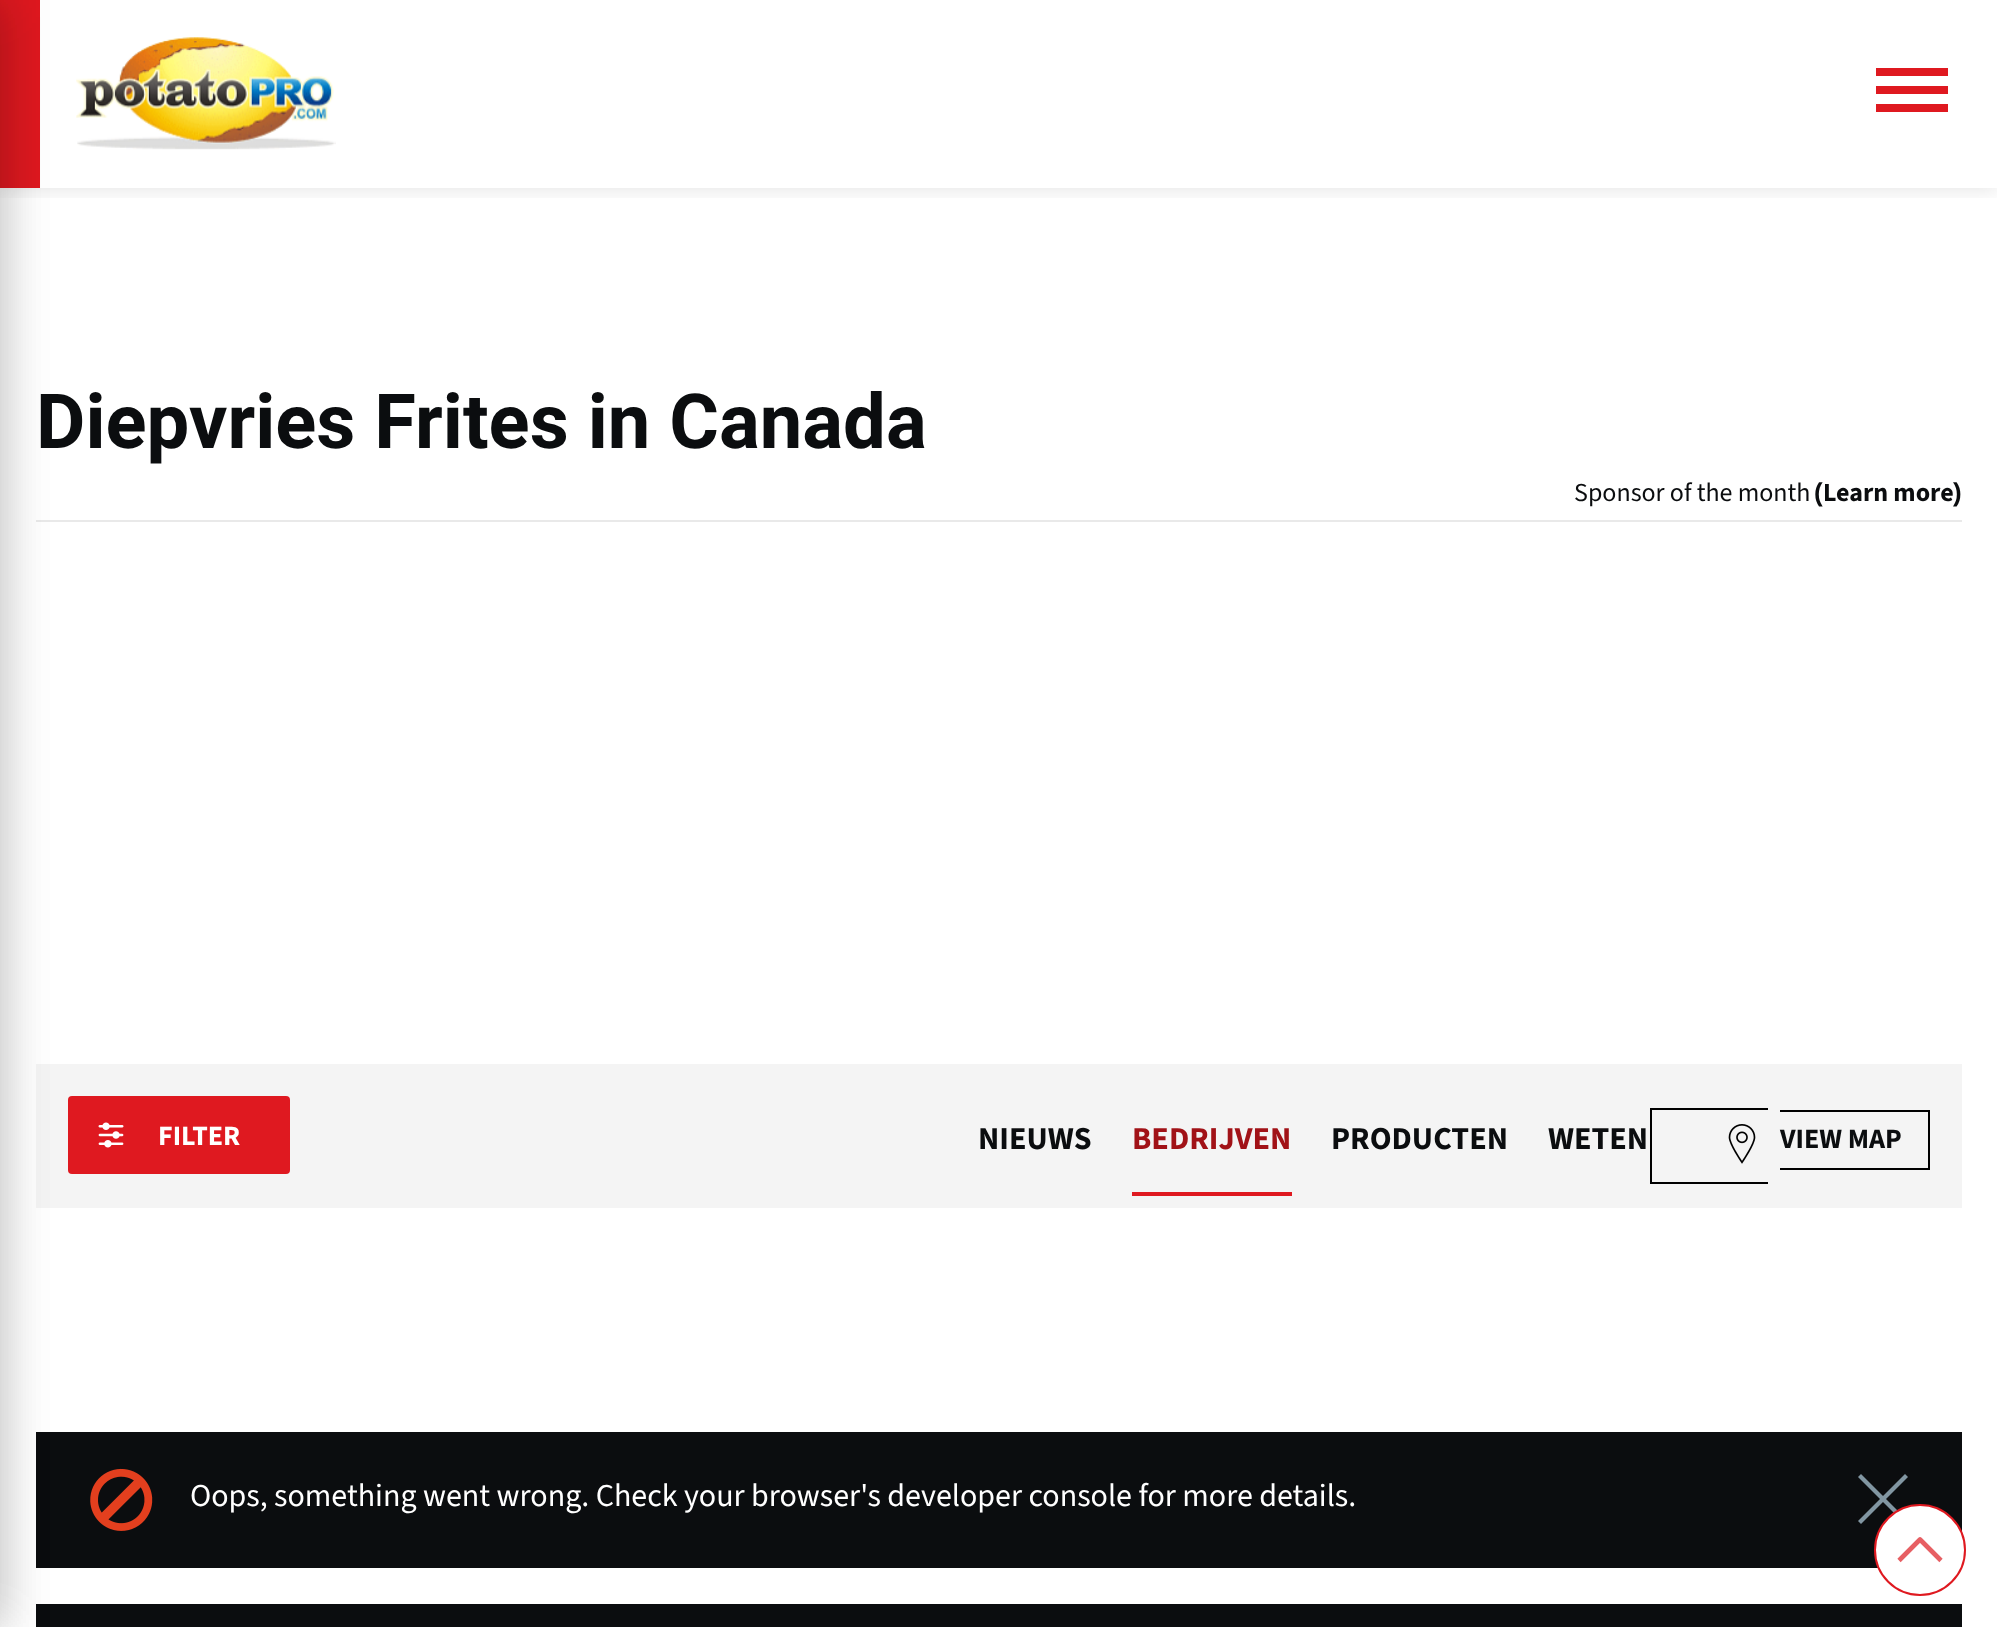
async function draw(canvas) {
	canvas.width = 1997;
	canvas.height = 1627;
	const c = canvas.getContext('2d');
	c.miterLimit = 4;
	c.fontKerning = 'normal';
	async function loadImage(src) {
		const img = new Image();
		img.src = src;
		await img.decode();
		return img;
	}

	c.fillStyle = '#fff';
	c.fillRect(0, 0, 1997, 1627);
	c.save();
	c.beginPath();
	c.rect(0, 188, 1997, 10);
	c.clip();
	c.fillStyle = '#0000001a';
	c.filter = 'blur(10px)';
	c.beginPath();
	c.rect(0, 2, 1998, 188);
	c.fill();
	c.filter = 'none';
	c.restore();
	for (const [x, y, w, h, color] of [
		[0, 0, 40, 188, '#df1920'],
		[36, 520, 1926, 2, '#e9e9e9'],
		[36, 1064, 1926, 144, '#f4f4f4'],
	]) {
		c.fillStyle = color;
		c.fillRect(x, y, w, h);
	}
	c.fillStyle = '#df1920';
	c.beginPath();
	c.roundRect(68, 1096, 222, 78, 4);
	c.fill();
	c.fillStyle = '#0b0d0f';
	c.fillRect(36, 1432, 1926, 136);
	c.fillRect(36, 1604, 1926, 23);
	c.fillStyle = '#00000026';
	c.filter = 'blur(25px)';
	c.beginPath();
	c.rect(-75, 0, 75, 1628);
	c.fill();
	c.filter = 'none';
	c.filter = 'blur(25px)';
	c.beginPath();
	c.rect(-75, 0, 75, 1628);
	c.fill();
	c.filter = 'none';
	c.drawImage(await loadImage('img1.png'), 76, 37, 260, 113);
	for (const [x, y, w, h, color] of [
		[1876, 86, 72, 8, '#df1920'],
		[1876, 68, 72, 8, '#df1920'],
		[1876, 104, 72, 8, '#df1920'],
	]) {
		c.fillStyle = color;
		c.fillRect(x, y, w, h);
	}
	c.font = 'bold 76px Roboto';
	c.fillStyle = '#0b0d0f';
	c.fillText('Diepvries Frites in Canada', 36, 448);
	c.font = '26px "Source Sans 3"';
	c.fillText('Sponsor of the month', 1574, 501);
	c.font = 'bold 26px Liberation Sans';
	c.fillText('(', 1814, 501);
	c.font = '200 26px "Source Sans 3"';
	c.fillText('Learn more', 1823, 501);
	c.font = 'bold 26px Liberation Sans';
	c.fillText(')', 1953, 501);
	c.drawImage(await loadImage('img2.png'), 98, 1122, 26, 26);
	c.font = '200 28px "Source Sans 3"';
	c.fillStyle = '#fff';
	c.fillText('FILTER', 158, 1145);
	c.font = '200 32px "Source Sans 3"';
	c.fillStyle = '#0b0d0f';
	c.fillText('NIEUWS', 978, 1149);
	c.fillStyle = '#a11217';
	c.fillText('BEDRIJVEN', 1132, 1149);
	c.fillStyle = '#df1920';
	c.fillRect(1132, 1192, 160, 4);
	c.fillStyle = '#0b0d0f';
	c.fillText('PRODUCTEN', 1331, 1149);
	c.fillText('WETEN', 1548, 1149);
	for (const [x, y, w, h, color] of [
		[1650, 1108, 118, 2, '#000'],
		[1650, 1182, 118, 2, '#000'],
		[1650, 1108, 2, 76, '#000'],
		[1780, 1110, 150, 2, '#000'],
		[1928, 1110, 2, 60, '#000'],
		[1780, 1168, 150, 2, '#000'],
	]) {
		c.fillStyle = color;
		c.fillRect(x, y, w, h);
	}
	c.drawImage(await loadImage('img3.png'), 1728, 1124, 28, 40);
	c.font = '200 28px "Source Sans 3"';
	c.fillStyle = '#0b0d0f';
	c.fillText('VIEW MAP', 1780, 1148);
	c.drawImage(await loadImage('img4.png'), 90, 1468, 63, 63);
	c.font = '32px "Source Sans 3"';
	c.fillStyle = '#fff';
	c.fillText('Oops, something went wrong. Check your browser\'s developer console for more details.', 190, 1506);
	c.fillStyle = '#8196a2';
	c.beginPath();
	c.moveTo(1861, 1474);
	c.lineTo(1908, 1521);
	c.lineTo(1905, 1524);
	c.lineTo(1858, 1477);
	c.closePath();
	c.fill();
	c.beginPath();
	c.moveTo(1858, 1521);
	c.lineTo(1905, 1474);
	c.lineTo(1908, 1477);
	c.lineTo(1861, 1524);
	c.closePath();
	c.fill();
	c.fillStyle = '#fff';
	c.beginPath();
	c.arc(1920, 1550, 45, 0, 2 * Math.PI);
	c.fill();
	c.strokeStyle = '#df1920';
	c.lineWidth = 2;
	c.stroke();
	c.beginPath();
	c.moveTo(1899, 1560.5);
	c.lineTo(1920, 1539.5);
	c.lineTo(1941, 1560.5);
	c.strokeStyle = '#e75f63';
	c.lineWidth = 4.6;
	c.lineJoin = 'round';
	c.stroke();
}

draw(document.querySelector('canvas'));
